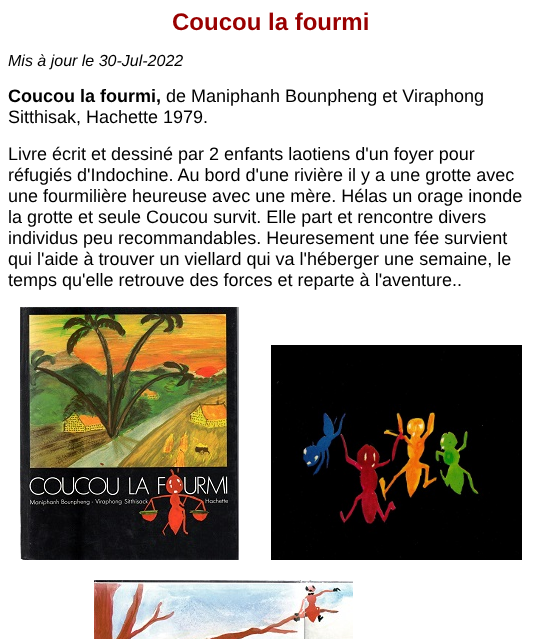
async function draw(canvas) {
	canvas.width = 541;
	canvas.height = 639;
	const c = canvas.getContext('2d');
	c.miterLimit = 4;
	c.fontKerning = 'normal';
	async function loadImage(src) {
		const img = new Image();
		img.src = src;
		await img.decode();
		return img;
	}

	c.fillStyle = '#fff';
	c.fillRect(0, 0, 541, 639);
	c.font = 'bold 24px Liberation Sans';
	c.fillStyle = '#900';
	c.fillText('Coucou la fourmi', 172, 30);
	c.font = 'italic 16px Liberation Sans';
	c.fillStyle = '#000';
	c.fillText('Mis à jour le 30-Jul-2022', 8, 66);
	c.font = 'bold 18px Liberation Sans';
	c.fillText('Coucou la fourmi,', 8, 102);
	c.font = '18px Liberation Sans';
	for (const [text, x, y] of [
		['de Maniphanh Bounpheng et Viraphong', 166, 102],
		['Sitthisak, Hachette 1979.', 8, 123],
		['Livre écrit et dessiné par 2 enfants laotiens d\'un foyer pour', 8, 160],
		['réfugiés d\'Indochine. Au bord d\'une rivière il y a une grotte avec', 8, 181],
		['une fourmilière heureuse avec une mère. Hélas un orage inonde', 8, 202],
		['la grotte et seule Coucou survit. Elle part et rencontre divers', 8, 223],
		['individus peu recommandables. Heuresement une fée survient', 8, 244],
		['qui l\'aide à trouver un viellard qui va l\'héberger une semaine, le', 8, 265],
		['temps qu\'elle retrouve des forces et reparte à l\'aventure..', 8, 286],
	]) {
		c.fillText(text, x, y);
	}
	c.drawImage(await loadImage('img1.png'), 20, 307, 219, 253);
	c.drawImage(await loadImage('img2.png'), 271, 345, 251, 215);
	c.drawImage(await loadImage('img3.png'), 94, 580, 259, 59);
}

draw(document.querySelector('canvas'));
